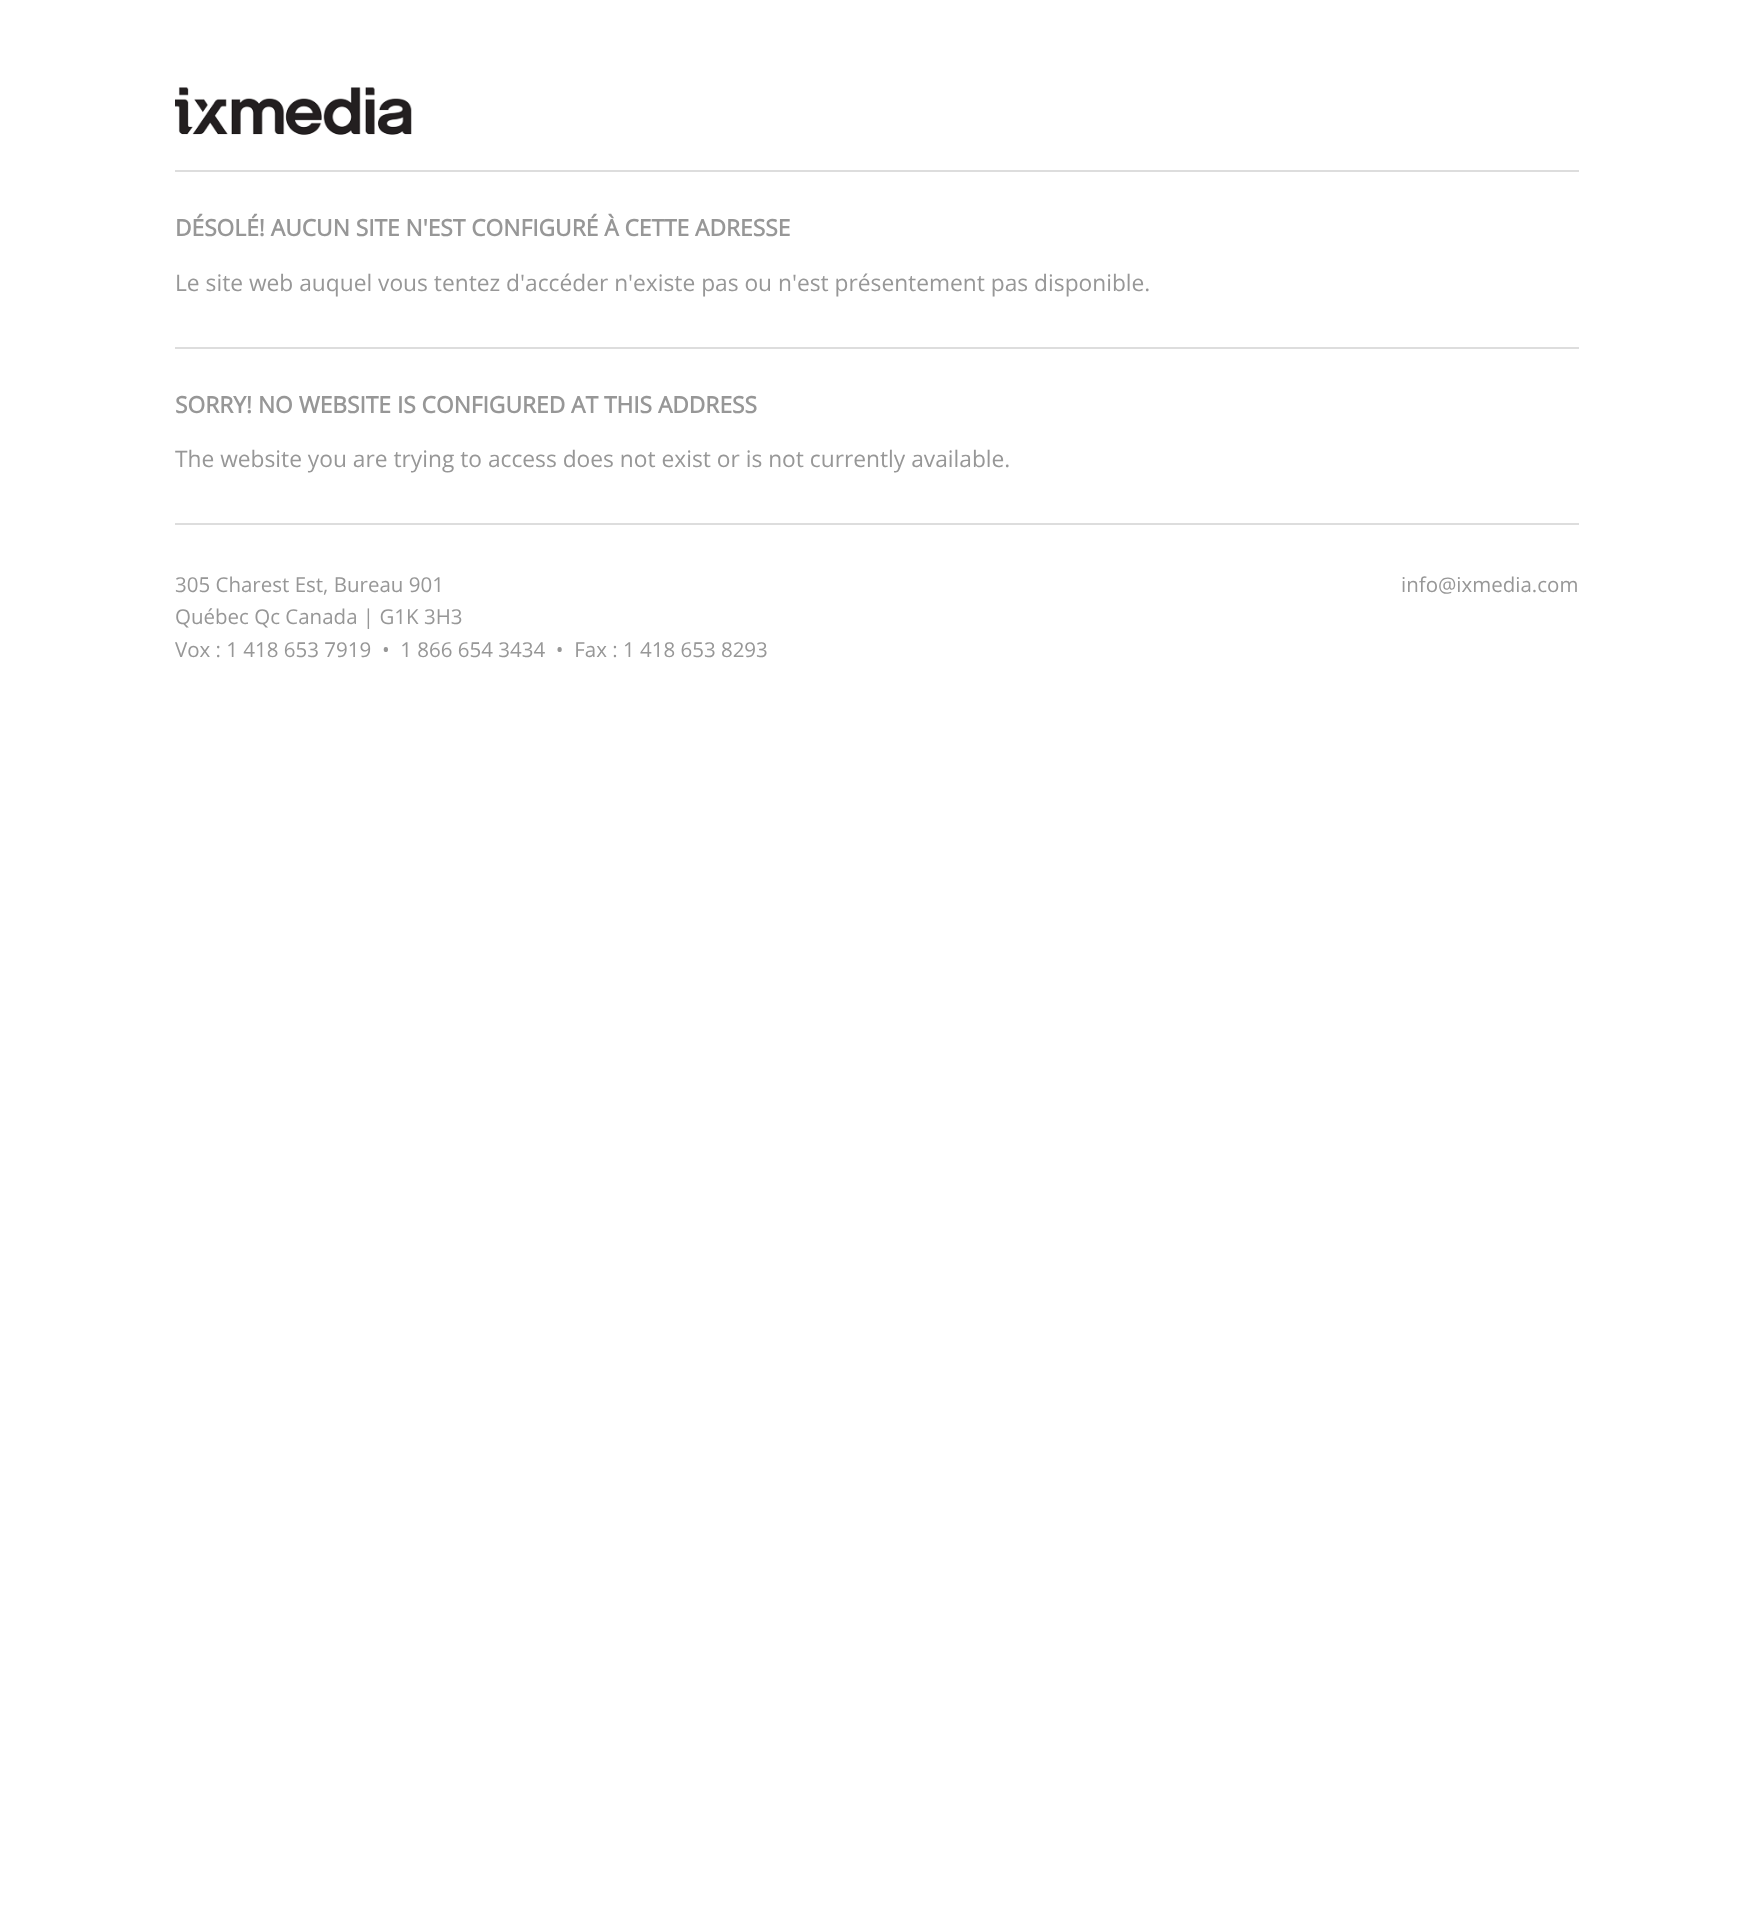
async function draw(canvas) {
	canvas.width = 1752;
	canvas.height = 1920;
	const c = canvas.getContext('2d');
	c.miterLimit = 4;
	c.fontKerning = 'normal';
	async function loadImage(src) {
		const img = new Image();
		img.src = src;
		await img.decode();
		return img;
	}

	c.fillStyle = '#fff';
	c.fillRect(0, 0, 1752, 1920);
	c.drawImage(await loadImage('img1.png'), 175, 87, 237, 48);
	c.fillStyle = '#ddd';
	c.fillRect(175, 170, 1404, 2);
	c.font = 'bold 22.75px Open Sans';
	c.fillStyle = '#979797';
	c.fillText('DÉSOLÉ! AUCUN SITE N\'EST CONFIGURÉ À CETTE ADRESSE', 175, 236);
	c.font = '22.75px Open Sans';
	c.fillText('Le site web auquel vous tentez d\'accéder n\'existe pas ou n\'est présentement pas disponible.', 175, 291);
	c.fillStyle = '#ddd';
	c.fillRect(175, 347, 1404, 2);
	c.font = 'bold 22.75px Open Sans';
	c.fillStyle = '#979797';
	c.fillText('SORRY! NO WEBSITE IS CONFIGURED AT THIS ADDRESS', 175, 413);
	c.font = '22.75px Open Sans';
	c.fillText('The website you are trying to access does not exist or is not currently available.', 175, 467);
	c.fillStyle = '#ddd';
	c.fillRect(175, 523, 1404, 2);
	c.font = '20.5px Open Sans';
	c.fillStyle = '#979797';
	for (const [text, x, y] of [
		['305 Charest Est, Bureau 901', 175, 592],
		['info@ixmedia.com', 1401, 592],
		['Québec Qc Canada | G1K 3H3', 175, 624],
		['Vox : 1 418 653 7919  •  1 866 654 3434  •  Fax : 1 418 653 8293', 175, 657],
	]) {
		c.fillText(text, x, y);
	}
}

draw(document.querySelector('canvas'));
